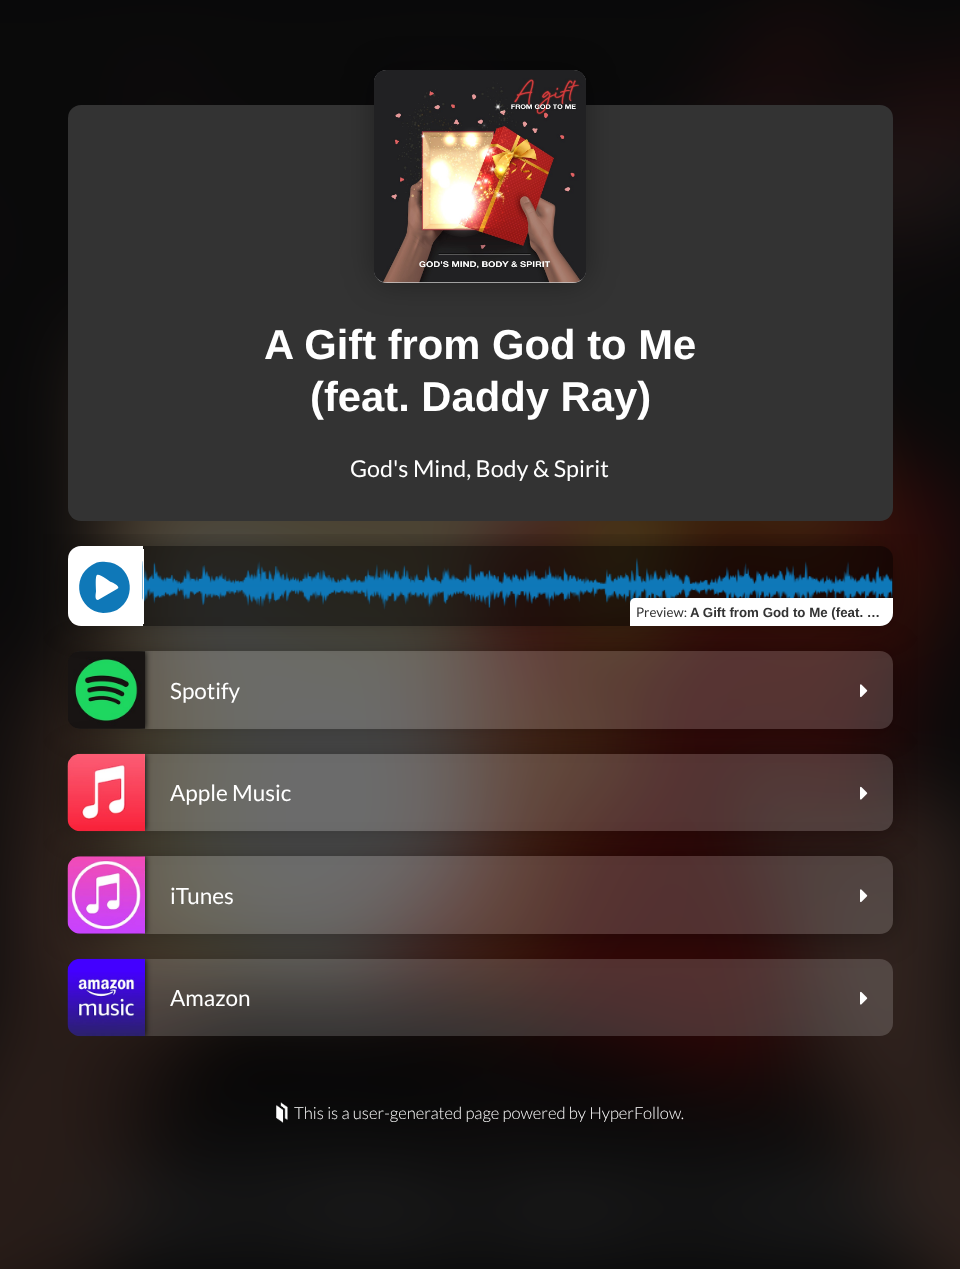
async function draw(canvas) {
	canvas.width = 960;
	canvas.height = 1269;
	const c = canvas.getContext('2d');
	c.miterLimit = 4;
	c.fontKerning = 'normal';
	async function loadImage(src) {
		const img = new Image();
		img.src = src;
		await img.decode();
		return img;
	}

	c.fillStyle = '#000';
	c.fillRect(0, 0, 960, 1269);
	c.drawImage(await loadImage('img1.png'), 0, 0, 960, 1269);
	c.fillStyle = '#333';
	c.beginPath();
	c.roundRect(68, 105, 825, 416, 13);
	c.fill();
	c.fillStyle = '#00000059';
	c.filter = 'blur(15.5px)';
	c.beginPath();
	c.roundRect(374, 70, 212, 213, 13);
	c.fill();
	c.filter = 'none';
	c.fillStyle = '#ccc';
	c.beginPath();
	c.roundRect(374, 70, 212, 213, 13);
	c.fill();
	c.drawImage(await loadImage('img2.png'), 374, 70, 212, 213);
	c.font = 'bold 41.75px Liberation Sans';
	c.fillStyle = '#fff';
	c.fillText('A Gift from God to Me', 264, 359);
	c.fillText('(feat. Daddy Ray)', 310, 411);
	c.font = '23.25px Lato';
	c.fillText('God\'s Mind, Body & Spirit', 350, 477);
	c.save();
	c.beginPath();
	c.rect(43, 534, 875, 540);
	c.clip();
	c.beginPath();
	c.moveTo(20, 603);
	c.lineTo(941, 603);
	c.lineTo(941, 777);
	c.lineTo(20, 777);
	c.closePath();
	c.moveTo(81, 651);
	c.lineTo(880, 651);
	c.bezierCurveTo(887, 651, 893, 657, 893, 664);
	c.lineTo(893, 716);
	c.bezierCurveTo(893, 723, 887, 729, 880, 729);
	c.lineTo(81, 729);
	c.bezierCurveTo(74, 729, 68, 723, 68, 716);
	c.lineTo(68, 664);
	c.bezierCurveTo(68, 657, 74, 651, 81, 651);
	c.closePath();
	c.clip('evenodd');
	c.fillStyle = '#00000059';
	c.filter = 'blur(15.5px)';
	c.beginPath();
	c.roundRect(68, 651, 825, 78, 13);
	c.fill();
	c.filter = 'none';
	c.restore();
	c.fillStyle = '#ffffff2b';
	c.beginPath();
	c.roundRect(68, 651, 825, 78, 13);
	c.fill();
	c.save();
	c.beginPath();
	c.roundRect(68, 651, 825, 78, 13);
	c.clip();
	c.fillStyle = '#000';
	c.filter = 'blur(3px)';
	c.beginPath();
	c.rect(68, 651, 77, 78);
	c.fill();
	c.filter = 'none';
	c.restore();
	c.drawImage(await loadImage('img4.png'), 68, 651, 77, 78);
	c.save();
	c.beginPath();
	c.rect(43, 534, 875, 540);
	c.clip();
	c.beginPath();
	c.moveTo(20, 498);
	c.lineTo(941, 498);
	c.lineTo(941, 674);
	c.lineTo(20, 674);
	c.closePath();
	c.moveTo(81, 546);
	c.lineTo(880, 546);
	c.bezierCurveTo(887, 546, 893, 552, 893, 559);
	c.lineTo(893, 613);
	c.bezierCurveTo(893, 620, 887, 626, 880, 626);
	c.lineTo(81, 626);
	c.bezierCurveTo(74, 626, 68, 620, 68, 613);
	c.lineTo(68, 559);
	c.bezierCurveTo(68, 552, 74, 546, 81, 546);
	c.closePath();
	c.clip('evenodd');
	c.fillStyle = '#00000059';
	c.filter = 'blur(15.5px)';
	c.beginPath();
	c.roundRect(68, 546, 825, 80, 13);
	c.fill();
	c.filter = 'none';
	c.restore();
	c.fillStyle = '#fff';
	c.beginPath();
	c.roundRect(68, 546, 75, 80, [13, 0, 0, 13]);
	c.fill();
	c.fillStyle = '#0f78b8';
	c.beginPath();
	c.moveTo(92, 565);
	c.bezierCurveTo(96, 562, 101, 561, 106, 562);
	c.bezierCurveTo(131, 563, 139, 597, 117, 610);
	c.bezierCurveTo(113, 612, 108, 613, 103, 613);
	c.bezierCurveTo(78, 611, 70, 578, 92, 565);
	c.closePath();
	c.moveTo(117, 589);
	c.bezierCurveTo(122, 587, 112, 582, 111, 582);
	c.bezierCurveTo(109, 581, 99, 573, 97, 575);
	c.bezierCurveTo(95, 576, 96, 588, 96, 591);
	c.bezierCurveTo(96, 593, 94, 600, 98, 600);
	c.closePath();
	c.fill();
	c.fillStyle = '#00000080';
	c.beginPath();
	c.roundRect(143, 546, 750, 80, [0, 13, 13, 0]);
	c.fill();
	c.drawImage(await loadImage('img3.png'), 142, 557, 751, 53);
	c.fillStyle = '#fff';
	c.fillRect(143, 549, 1, 75);
	c.beginPath();
	c.roundRect(630, 598, 263, 28, [5, 0, 13, 0]);
	c.fill();
	c.font = '13.3px Lato';
	c.fillStyle = '#333';
	c.fillText('Preview:', 636, 617);
	c.font = 'bold 13.3px Liberation Sans';
	c.fillText('A Gift from God to Me (feat. …', 690, 617);
	c.font = '22.5px Lato';
	c.fillStyle = '#fff';
	c.fillText('Spotify', 170, 699);
	c.drawImage(await loadImage('img5.png'), 860, 684, 8, 14);
	c.save();
	c.beginPath();
	c.rect(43, 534, 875, 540);
	c.clip();
	c.beginPath();
	c.moveTo(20, 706);
	c.lineTo(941, 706);
	c.lineTo(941, 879);
	c.lineTo(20, 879);
	c.closePath();
	c.moveTo(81, 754);
	c.lineTo(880, 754);
	c.bezierCurveTo(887, 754, 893, 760, 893, 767);
	c.lineTo(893, 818);
	c.bezierCurveTo(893, 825, 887, 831, 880, 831);
	c.lineTo(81, 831);
	c.bezierCurveTo(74, 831, 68, 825, 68, 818);
	c.lineTo(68, 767);
	c.bezierCurveTo(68, 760, 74, 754, 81, 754);
	c.closePath();
	c.clip('evenodd');
	c.fillStyle = '#00000059';
	c.filter = 'blur(15.5px)';
	c.beginPath();
	c.roundRect(68, 754, 825, 77, 13);
	c.fill();
	c.filter = 'none';
	c.restore();
	c.fillStyle = '#ffffff2b';
	c.beginPath();
	c.roundRect(68, 754, 825, 77, 13);
	c.fill();
	c.save();
	c.beginPath();
	c.roundRect(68, 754, 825, 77, 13);
	c.clip();
	c.fillStyle = '#000';
	c.filter = 'blur(3px)';
	c.beginPath();
	c.rect(68, 754, 77, 77);
	c.fill();
	c.filter = 'none';
	c.restore();
	c.drawImage(await loadImage('img6.png'), 67, 753, 78, 79);
	c.fillStyle = '#fff';
	c.fillText('Apple Music', 170, 801);
	c.drawImage(await loadImage('img7.png'), 860, 786, 8, 14);
	c.save();
	c.beginPath();
	c.rect(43, 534, 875, 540);
	c.clip();
	c.beginPath();
	c.moveTo(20, 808);
	c.lineTo(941, 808);
	c.lineTo(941, 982);
	c.lineTo(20, 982);
	c.closePath();
	c.moveTo(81, 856);
	c.lineTo(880, 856);
	c.bezierCurveTo(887, 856, 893, 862, 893, 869);
	c.lineTo(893, 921);
	c.bezierCurveTo(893, 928, 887, 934, 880, 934);
	c.lineTo(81, 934);
	c.bezierCurveTo(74, 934, 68, 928, 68, 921);
	c.lineTo(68, 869);
	c.bezierCurveTo(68, 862, 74, 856, 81, 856);
	c.closePath();
	c.clip('evenodd');
	c.fillStyle = '#00000059';
	c.filter = 'blur(15.5px)';
	c.beginPath();
	c.roundRect(68, 856, 825, 78, 13);
	c.fill();
	c.filter = 'none';
	c.restore();
	c.fillStyle = '#ffffff2b';
	c.beginPath();
	c.roundRect(68, 856, 825, 78, 13);
	c.fill();
	c.save();
	c.beginPath();
	c.roundRect(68, 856, 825, 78, 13);
	c.clip();
	c.fillStyle = '#000';
	c.filter = 'blur(3px)';
	c.beginPath();
	c.rect(68, 856, 77, 78);
	c.fill();
	c.filter = 'none';
	c.restore();
	c.drawImage(await loadImage('img8.png'), 67, 856, 78, 78);
	c.fillStyle = '#fff';
	c.fillText('iTunes', 170, 904);
	c.drawImage(await loadImage('img9.png'), 860, 889, 8, 14);
	c.fillStyle = '#ffffff2b';
	c.beginPath();
	c.roundRect(68, 959, 825, 77, 13);
	c.fill();
	c.save();
	c.beginPath();
	c.roundRect(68, 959, 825, 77, 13);
	c.clip();
	c.fillStyle = '#000';
	c.filter = 'blur(3px)';
	c.beginPath();
	c.rect(68, 959, 77, 77);
	c.fill();
	c.filter = 'none';
	c.restore();
	c.drawImage(await loadImage('img10.png'), 67, 958, 78, 79);
	c.fillStyle = '#fff';
	c.fillText('Amazon', 170, 1006);
	c.drawImage(await loadImage('img11.png'), 860, 991, 8, 14);
	c.drawImage(await loadImage('img12.png'), 276, 1102, 12, 21);
	c.font = '300 16.7px Lato';
	c.fillText('This is a user-generated page powered by HyperFollow.', 294, 1119);
}

draw(document.querySelector('canvas'));
